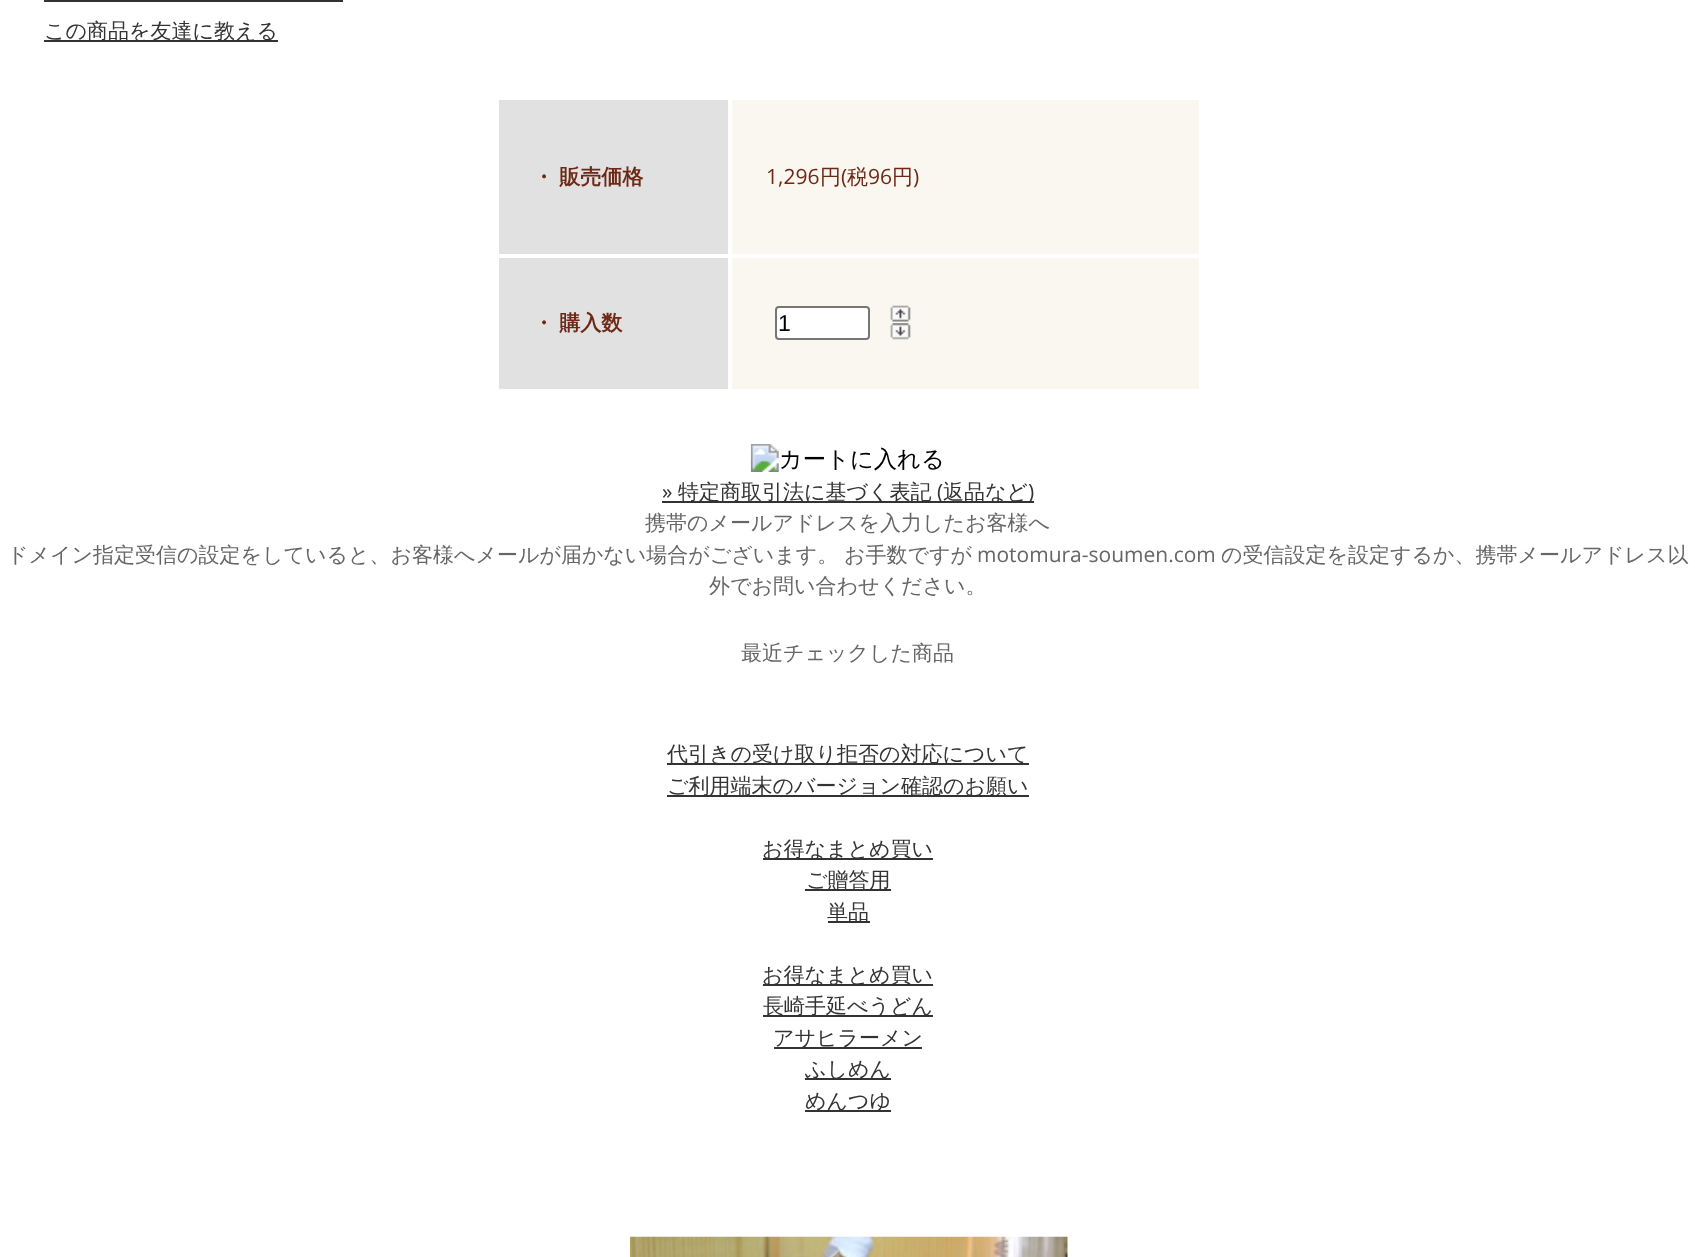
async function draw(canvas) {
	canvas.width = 1695;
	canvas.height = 1257;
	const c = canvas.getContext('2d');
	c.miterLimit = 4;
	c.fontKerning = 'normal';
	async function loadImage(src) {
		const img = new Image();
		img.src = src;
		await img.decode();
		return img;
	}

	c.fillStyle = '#fff';
	c.fillRect(0, 0, 1695, 1257);
	c.fillStyle = '#333';
	c.fillRect(44, 0, 299, 2);
	c.fillRect(44, 40, 234, 2);
	c.font = '500 21px WenQuanYi Zen Hei';
	c.fillText('この商品を友達に教える', 44, 38);
	c.fillStyle = '#e1e1e1';
	c.fillRect(499, 100, 229, 289);
	c.fillStyle = '#fff';
	c.fillRect(497, 254, 235, 4);
	c.wordSpacing = '-1px';
	c.font = 'bold 21px WenQuanYi Zen Hei';
	c.fillStyle = '#6d2916';
	c.fillText('・ 販売価格', 533, 184);
	c.fillStyle = '#faf7f1';
	c.fillRect(732, 100, 467, 154);
	c.wordSpacing = '0px';
	c.font = '21px Open Sans';
	c.fillStyle = '#6d2916';
	c.fillText('1,296', 766, 184);
	c.font = '500 21px WenQuanYi Zen Hei';
	c.fillText('円', 820, 184);
	c.font = '21px Open Sans';
	c.fillText('(', 841, 184);
	c.font = '500 21px WenQuanYi Zen Hei';
	c.fillText('税', 847, 184);
	c.font = '21px Open Sans';
	c.fillText('96', 868, 184);
	c.font = '500 21px WenQuanYi Zen Hei';
	c.fillText('円', 892, 184);
	c.font = '21px Open Sans';
	c.fillText(')', 913, 184);
	c.wordSpacing = '-1px';
	c.font = 'bold 21px WenQuanYi Zen Hei';
	c.fillText('・ 購入数', 533, 330);
	c.fillStyle = '#faf7f1';
	c.fillRect(732, 258, 467, 131);
	c.fillStyle = '#fff';
	c.beginPath();
	c.roundRect(776, 307, 93, 32, 3);
	c.fill();
	c.strokeStyle = '#767676';
	c.lineWidth = 2;
	c.stroke();
	c.wordSpacing = '0px';
	c.font = '23px Liberation Sans';
	c.fillStyle = '#000';
	c.fillText('1', 778, 331);
	c.drawImage(await loadImage('img1.png'), 890, 305, 21, 17);
	c.drawImage(await loadImage('img2.png'), 890, 323, 21, 17);
	c.drawImage(await loadImage('img3.png'), 750, 444, 192, 28);
	c.font = '21px Open Sans';
	c.fillStyle = '#333';
	c.fillText('»', 662, 499);
	c.fillRect(662, 501, 372, 2);
	c.font = '500 21px WenQuanYi Zen Hei';
	c.fillText('特定商取引法に基づく表記', 678, 499);
	c.font = '21px Open Sans';
	c.fillText('(', 937, 499);
	c.font = '500 21px WenQuanYi Zen Hei';
	c.fillText('返品など', 943, 499);
	c.font = '21px Open Sans';
	c.fillText(')', 1028, 499);
	c.font = '500 21px WenQuanYi Zen Hei';
	c.fillStyle = '#666';
	for (const [text, x, y] of [
		['携帯のメールアドレスを入力したお客様へ', 645, 530],
		['ドメイン指定受信の設定をしていると、お客様へメールが届かない場合がございます。', 7, 562],
		['お手数ですが', 844, 562],
	]) {
		c.fillText(text, x, y);
	}
	c.font = '21px Open Sans';
	c.fillText('motomura-soumen.com', 977, 562);
	c.font = '500 21px WenQuanYi Zen Hei';
	for (const [text, x, y] of [
		['の受信設定を設定するか、携帯メールアドレス以', 1221, 562],
		['外でお問い合わせください。', 709, 593],
		['最近チェックした商品', 741, 660],
	]) {
		c.fillText(text, x, y);
	}
	c.fillStyle = '#333';
	c.fillRect(667, 763, 362, 2);
	c.fillText('代引きの受け取り拒否の対応について', 667, 761);
	c.fillRect(667, 795, 362, 2);
	c.fillText('ご利用端末のバージョン確認のお願い', 667, 793);
	c.fillRect(763, 858, 170, 2);
	c.fillText('お得なまとめ買い', 762, 856);
	c.fillRect(805, 889, 86, 2);
	c.fillText('ご贈答用', 806, 887);
	c.fillRect(828, 921, 42, 2);
	c.fillText('単品', 827, 919);
	c.fillRect(763, 984, 170, 2);
	c.fillText('お得なまとめ買い', 762, 982);
	c.fillRect(763, 1015, 170, 2);
	c.fillText('長崎手延べうどん', 763, 1013);
	c.fillRect(774, 1047, 148, 2);
	c.fillText('アサヒラーメン', 773, 1045);
	c.fillRect(805, 1078, 86, 2);
	c.fillText('ふしめん', 805, 1076);
	c.fillRect(805, 1110, 86, 2);
	c.fillText('めんつゆ', 805, 1108);
	c.drawImage(await loadImage('img4.png'), 630, 1236, 438, 21);
}

draw(document.querySelector('canvas'));
